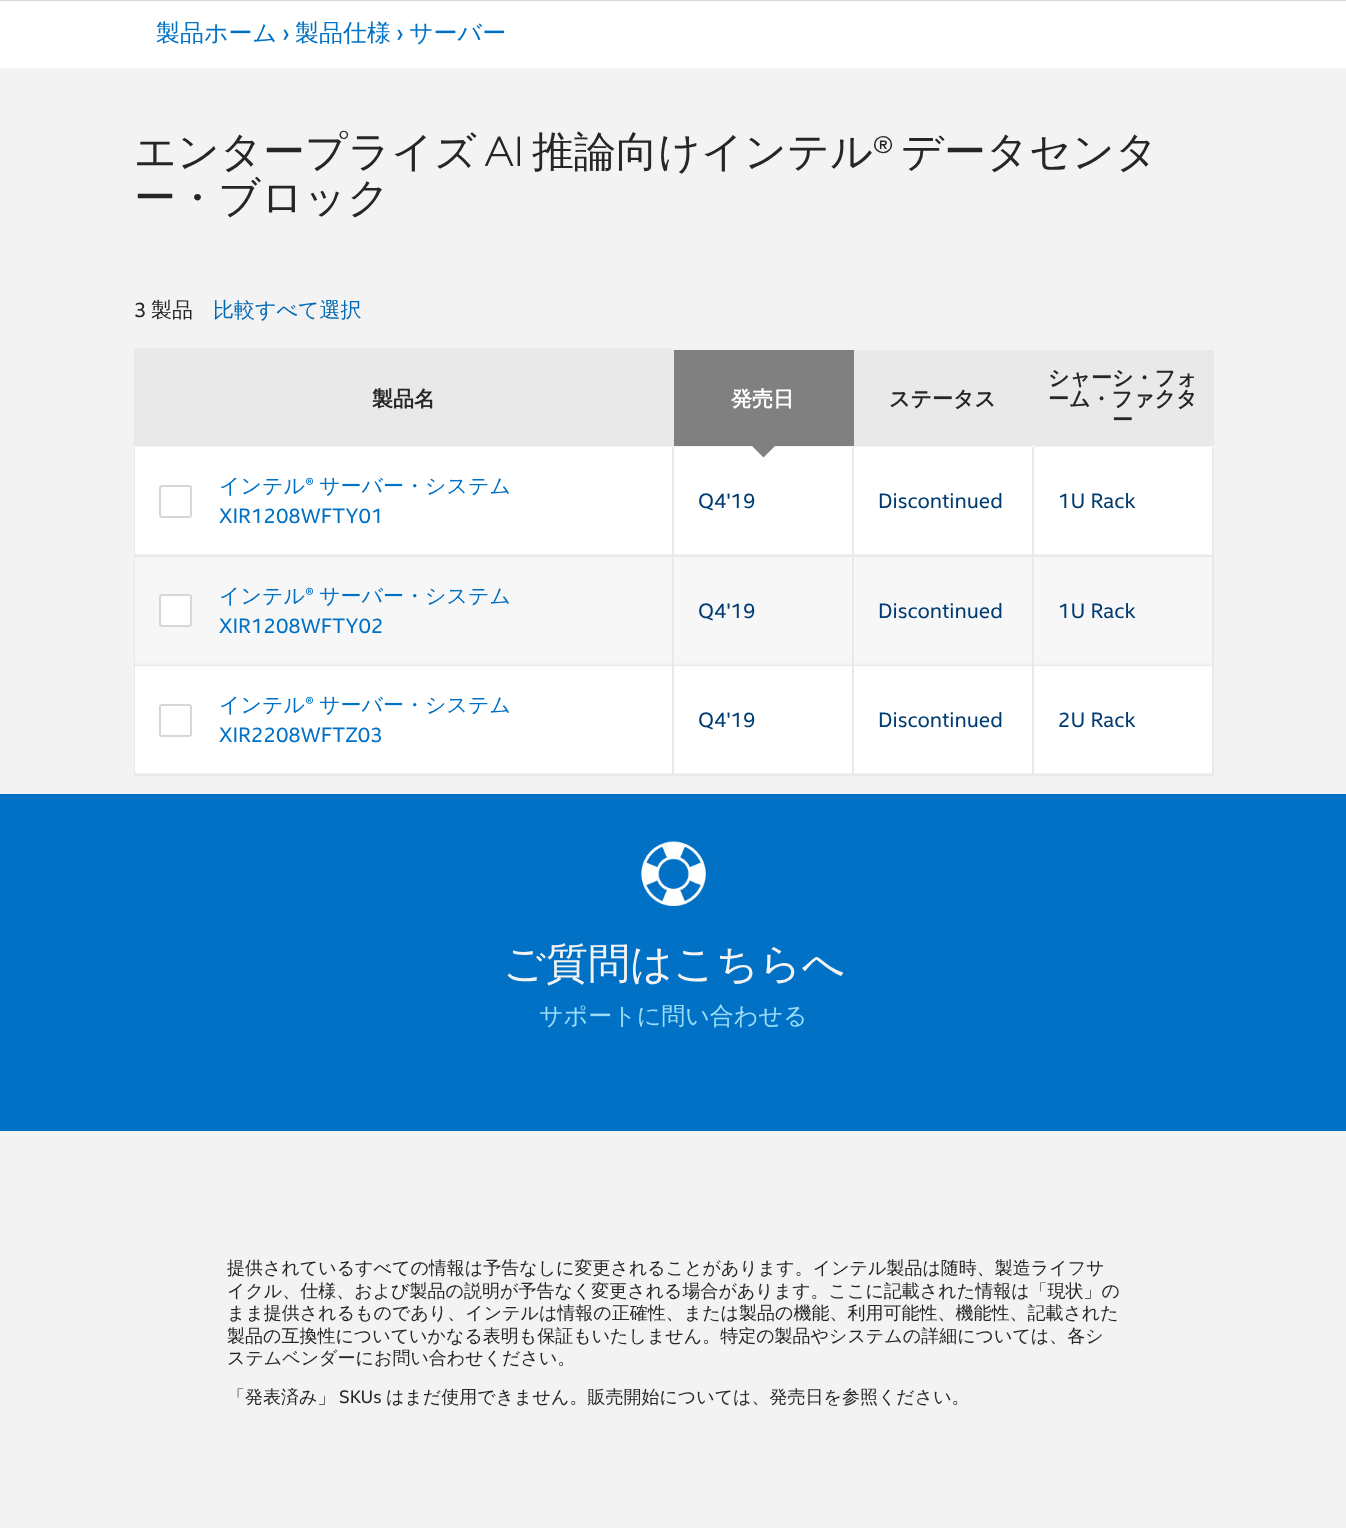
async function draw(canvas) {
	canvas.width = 1346;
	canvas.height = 1528;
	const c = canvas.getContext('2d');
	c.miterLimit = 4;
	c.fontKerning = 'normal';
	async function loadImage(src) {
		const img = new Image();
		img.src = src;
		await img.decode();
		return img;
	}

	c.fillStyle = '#f3f3f3';
	c.fillRect(0, 0, 1346, 1528);
	c.fillStyle = '#d7d7d7';
	c.fillRect(0, 0, 1346, 1);
	c.fillStyle = '#fff';
	c.fillRect(0, 1, 1346, 67);
	c.font = '500 24px WenQuanYi Zen Hei';
	c.fillStyle = '#0071c5';
	c.fillText('製品ホーム', 156, 41);
	c.font = '24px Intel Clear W';
	c.fillText('›', 282, 41);
	c.font = '500 24px WenQuanYi Zen Hei';
	c.fillText('製品仕様', 295, 41);
	c.font = '24px Intel Clear W';
	c.fillText('›', 396, 41);
	c.font = '500 24px WenQuanYi Zen Hei';
	c.fillText('サーバー', 409, 41);
	c.font = '500 42px WenQuanYi Zen Hei';
	c.fillStyle = '#262626';
	c.fillText('エンタープライズ', 134, 166);
	c.font = '300 42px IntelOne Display';
	c.fillText('AI', 484, 166);
	c.font = '500 42px WenQuanYi Zen Hei';
	c.fillText('推論向けインテル', 532, 166);
	c.font = '300 42px IntelOne Display';
	c.fillText('®', 873, 166);
	c.font = '500 42px WenQuanYi Zen Hei';
	c.fillText('データセンタ', 901, 166);
	c.fillText('ー・ブロック', 134, 212);
	c.font = '21px Intel Clear W';
	c.fillText('3', 134, 317);
	c.font = '500 21px WenQuanYi Zen Hei';
	c.fillText('製品', 151, 317);
	c.fillStyle = '#0068b5';
	c.fillText('比較すべて選択', 213, 317);
	for (const [x, y, w, h, color] of [
		[134, 348, 538, 2, '#e9e9e9'],
		[134, 774, 1080, 2, '#e9e9e9'],
		[134, 348, 2, 428, '#e9e9e9'],
		[1032, 665, 2, 111, '#e9e9e9'],
		[1212, 446, 2, 330, '#e9e9e9'],
		[1032, 665, 182, 2, '#e9e9e9'],
		[1032, 555, 2, 111, '#e9e9e9'],
		[1032, 555, 182, 2, '#e9e9e9'],
		[1032, 446, 2, 111, '#e9e9e9'],
		[852, 665, 2, 111, '#e9e9e9'],
		[852, 665, 182, 2, '#e9e9e9'],
		[852, 555, 2, 111, '#e9e9e9'],
		[852, 555, 182, 2, '#e9e9e9'],
		[852, 446, 2, 111, '#e9e9e9'],
		[672, 665, 2, 111, '#e9e9e9'],
		[672, 665, 182, 2, '#e9e9e9'],
		[672, 555, 2, 111, '#e9e9e9'],
		[672, 555, 182, 2, '#e9e9e9'],
		[672, 446, 2, 111, '#e9e9e9'],
		[672, 446, 2, 1, '#fff'],
		[136, 350, 538, 96, '#e9e9e9'],
	]) {
		c.fillStyle = color;
		c.fillRect(x, y, w, h);
	}
	c.font = 'bold 21px WenQuanYi Zen Hei';
	c.fillStyle = '#262626';
	c.fillText('製品名', 372, 406);
	c.fillStyle = '#fff';
	c.fillRect(852, 446, 2, 1);
	c.fillStyle = '#808080';
	c.fillRect(674, 350, 180, 96);
	c.fillStyle = '#fff';
	c.fillText('発売日', 731, 406);
	c.fillRect(674, 447, 178, 107);
	c.fillStyle = '#808080';
	c.beginPath();
	c.moveTo(751.5, 445.5);
	c.lineTo(775.5, 445.5);
	c.lineTo(763.5, 457.5);
	c.closePath();
	c.fill();
	c.fillStyle = '#fff';
	c.fillRect(1032, 446, 2, 1);
	c.fillStyle = '#e9e9e9';
	c.fillRect(854, 350, 360, 96);
	c.fillStyle = '#262626';
	c.fillText('ステータス', 889, 406);
	c.fillStyle = '#fff';
	c.fillRect(1212, 446, 2, 1);
	c.fillStyle = '#262626';
	for (const [text, x, y] of [
		['シャーシ・フォ', 1048, 385],
		['ーム・ファクタ', 1048, 406],
		['ー', 1112, 427],
	]) {
		c.fillText(text, x, y);
	}
	for (const [x, y, w, h, color] of [
		[134, 446, 2, 2, '#f3f3f3'],
		[134, 555, 540, 2, '#e9e9e9'],
		[135, 447, 537, 107, '#fff'],
	]) {
		c.fillStyle = color;
		c.fillRect(x, y, w, h);
	}
	c.beginPath();
	c.roundRect(160, 486, 31, 31, 2);
	c.strokeStyle = '#d7d7d7';
	c.lineWidth = 2;
	c.stroke();
	c.font = '500 21px WenQuanYi Zen Hei';
	c.fillStyle = '#0071c5';
	c.fillText('インテル', 219, 493);
	c.font = '21px Intel Clear W';
	c.fillText('®', 305, 493);
	c.font = '500 21px WenQuanYi Zen Hei';
	c.fillText('サーバー・システム', 319, 493);
	c.font = '21px Intel Clear W';
	c.fillText('XIR1208WFTY01', 219, 523);
	c.fillStyle = '#003c71';
	c.fillText('Q4\'19', 698, 508);
	c.fillStyle = '#fff';
	c.fillRect(854, 447, 178, 107);
	c.fillStyle = '#003c71';
	c.fillText('Discontinued', 878, 508);
	c.fillStyle = '#fff';
	c.fillRect(1034, 447, 178, 107);
	c.fillStyle = '#003c71';
	c.fillText('1U Rack', 1058, 508);
	c.fillStyle = '#e9e9e9';
	c.fillRect(134, 665, 540, 2);
	c.fillStyle = '#f7f7f7';
	c.fillRect(135, 557, 537, 106);
	c.fillStyle = '#fff';
	c.beginPath();
	c.roundRect(160, 595, 31, 31, 2);
	c.fill();
	c.stroke();
	c.font = '500 21px WenQuanYi Zen Hei';
	c.fillStyle = '#0071c5';
	c.fillText('インテル', 219, 603);
	c.font = '21px Intel Clear W';
	c.fillText('®', 305, 603);
	c.font = '500 21px WenQuanYi Zen Hei';
	c.fillText('サーバー・システム', 319, 603);
	c.font = '21px Intel Clear W';
	c.fillText('XIR1208WFTY02', 219, 633);
	c.fillStyle = '#f7f7f7';
	c.fillRect(674, 557, 178, 106);
	c.fillStyle = '#003c71';
	c.fillText('Q4\'19', 698, 618);
	c.fillStyle = '#f7f7f7';
	c.fillRect(854, 557, 178, 106);
	c.fillStyle = '#003c71';
	c.fillText('Discontinued', 878, 618);
	c.fillStyle = '#f7f7f7';
	c.fillRect(1034, 557, 178, 106);
	c.fillStyle = '#003c71';
	c.fillText('1U Rack', 1058, 618);
	c.fillStyle = '#fff';
	c.fillRect(135, 666, 537, 107);
	c.beginPath();
	c.roundRect(160, 705, 31, 31, 2);
	c.stroke();
	c.font = '500 21px WenQuanYi Zen Hei';
	c.fillStyle = '#0071c5';
	c.fillText('インテル', 219, 712);
	c.font = '21px Intel Clear W';
	c.fillText('®', 305, 712);
	c.font = '500 21px WenQuanYi Zen Hei';
	c.fillText('サーバー・システム', 319, 712);
	c.font = '21px Intel Clear W';
	c.fillText('XIR2208WFTZ03', 219, 742);
	c.fillStyle = '#fff';
	c.fillRect(674, 666, 178, 107);
	c.fillStyle = '#003c71';
	c.fillText('Q4\'19', 698, 727);
	c.fillStyle = '#fff';
	c.fillRect(854, 666, 178, 107);
	c.fillStyle = '#003c71';
	c.fillText('Discontinued', 878, 727);
	c.fillStyle = '#fff';
	c.fillRect(1034, 666, 178, 107);
	c.fillStyle = '#003c71';
	c.fillText('2U Rack', 1058, 727);
	c.fillStyle = '#0071c5';
	c.fillRect(0, 794, 1346, 337);
	c.drawImage(await loadImage('img1.png'), 641, 841, 65, 65);
	c.font = '500 42px WenQuanYi Zen Hei';
	c.fillStyle = '#f3f3f3';
	c.fillText('ご質問はこちらへ', 503, 978);
	c.font = '500 24px WenQuanYi Zen Hei';
	c.fillStyle = '#9addf7';
	c.fillText('サポートに問い合わせる', 539, 1024);
	c.font = '500 18px WenQuanYi Zen Hei';
	c.fillStyle = '#262626';
	for (const [text, x, y] of [
		['提供されているすべての情報は予告なしに変更されることがあります。インテル製品は随時、製造ライフサ', 227, 1274],
		['イクル、仕様、および製品の説明が予告なく変更される場合があります。ここに記載された情報は「現状」の', 227, 1297],
		['まま提供されるものであり、インテルは情報の正確性、または製品の機能、利用可能性、機能性、記載された', 227, 1319],
		['製品の互換性についていかなる表明も保証もいたしません。特定の製品やシステムの詳細については、各シ', 227, 1342],
		['ステムベンダーにお問い合わせください。', 227, 1364],
		['「発表済み」', 227, 1403],
	]) {
		c.fillText(text, x, y);
	}
	c.font = '18px Intel Clear W';
	c.fillText('SKUs', 339, 1403);
	c.font = '500 18px WenQuanYi Zen Hei';
	c.fillText('はまだ使用できません。販売開始については、発売日を参照ください。', 386, 1403);
}

draw(document.querySelector('canvas'));
